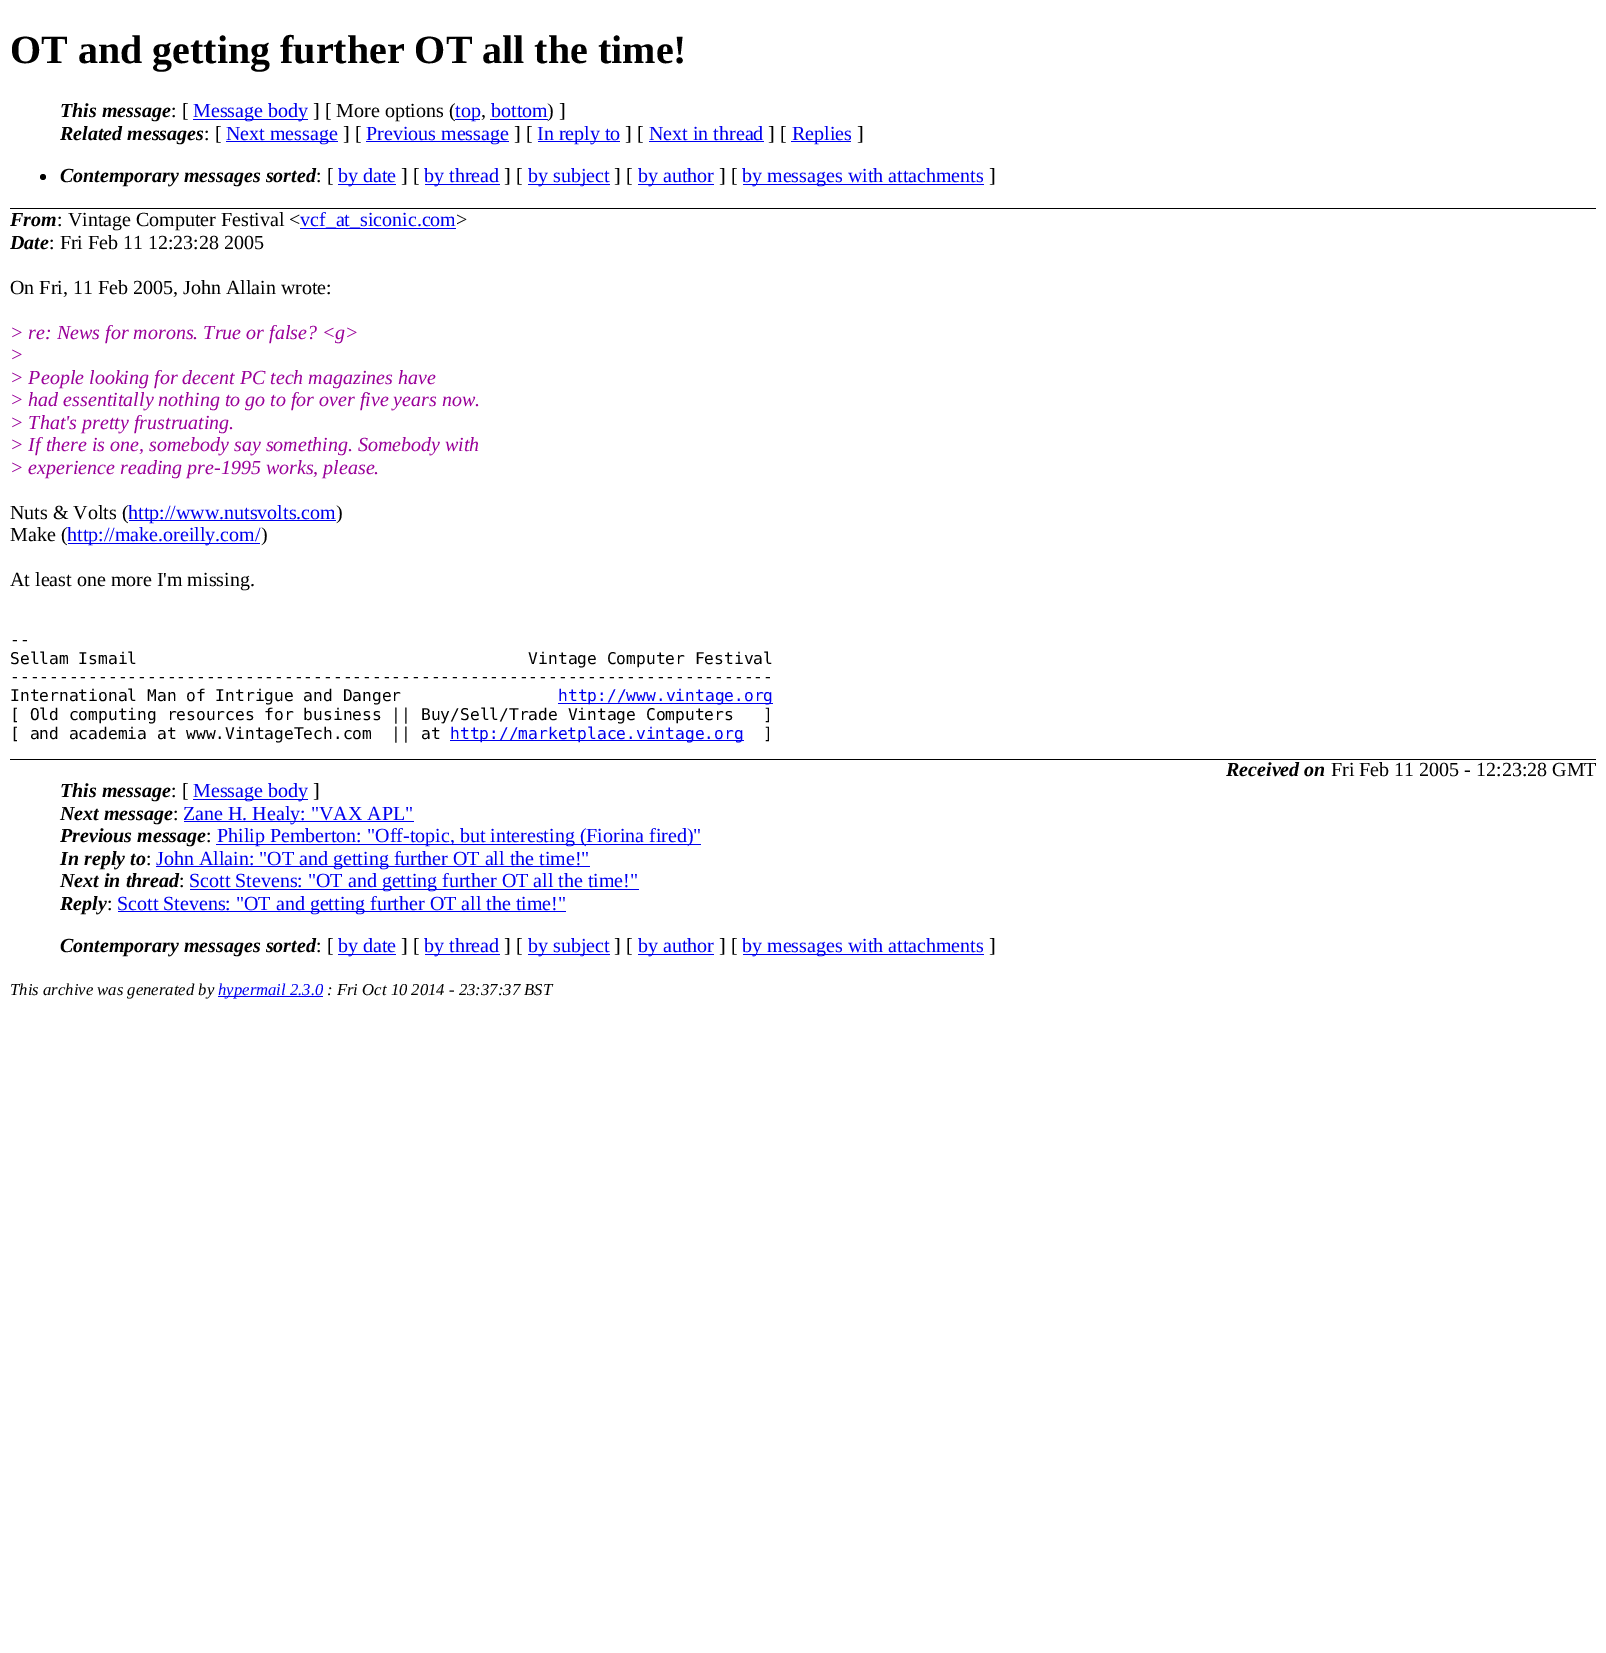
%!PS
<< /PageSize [1606 1653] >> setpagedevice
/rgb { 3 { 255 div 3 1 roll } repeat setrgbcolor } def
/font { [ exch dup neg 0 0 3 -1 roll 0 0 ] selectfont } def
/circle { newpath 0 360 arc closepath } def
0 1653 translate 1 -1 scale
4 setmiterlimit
255 255 255 rgb
0 0 1606 1653 rectfill
[
  [10 208 1586 1 0 0 0]
  [193 119 115 1 0 0 238]
  [455 119 25 1 0 0 238]
  [490 119 58 1 0 0 238]
  [226 141 112 1 0 0 238]
  [366 141 143 1 0 0 238]
  [538 141 82 1 0 0 238]
  [649 141 115 1 0 0 238]
  [791 141 60 1 0 0 238]
] { aload pop rgb rectfill } forall
0 0 0 rgb
43 177 3 circle fill
[
  [338 184 58 1 0 0 238]
  [425 184 75 1 0 0 238]
  [528 184 82 1 0 0 238]
  [638 184 76 1 0 0 238]
  [743 184 241 1 0 0 238]
  [300 228 156 1 0 0 238]
  [129 520 207 1 0 0 238]
  [68 543 192 1 0 0 238]
  [558 703 215 1 0 0 238]
  [450 740 294 1 0 0 238]
  [10 759 1586 1 0 0 0]
  [193 799 115 1 0 0 238]
  [184 821 230 1 0 0 238]
  [216 844 485 1 0 0 238]
  [156 866 434 1 0 0 238]
  [190 889 449 1 0 0 238]
  [118 911 448 1 0 0 238]
  [338 954 58 1 0 0 238]
  [425 954 75 1 0 0 238]
  [528 954 82 1 0 0 238]
  [638 954 76 1 0 0 238]
  [743 954 241 1 0 0 238]
  [218 996 105 1 0 0 238]
] { aload pop rgb rectfill } forall
/LiberationSerif-Bold 40 font
0 0 0 rgb
10 63 moveto (OT and getting further OT all the time!) show
/LiberationSerif-BoldItalic 20 font
60 117 moveto (This message) show
/LiberationSerif-Regular 20 font
171 117 moveto (: [) show
0 0 238 rgb
193 117 moveto (Message body) show
0 0 0 rgb
313 117 moveto (] [ More options \() show
0 0 238 rgb
455 117 moveto (top) show
0 0 0 rgb
481 117 moveto (,) show
0 0 238 rgb
491 117 moveto (bottom) show
0 0 0 rgb
547 117 moveto (\) ]) show
/LiberationSerif-BoldItalic 20 font
60 140 moveto (Related messages) show
/LiberationSerif-Regular 20 font
204 140 moveto (: [) show
0 0 238 rgb
226 140 moveto (Next message) show
0 0 0 rgb
343 140 moveto (] [) show
0 0 238 rgb
366 140 moveto (Previous message) show
0 0 0 rgb
514 140 moveto (] [) show
0 0 238 rgb
537 140 moveto (In reply to) show
0 0 0 rgb
625 140 moveto (] [) show
0 0 238 rgb
649 140 moveto (Next in thread) show
0 0 0 rgb
768 140 moveto (] [) show
0 0 238 rgb
792 140 moveto (Replies) show
0 0 0 rgb
857 140 moveto (]) show
/LiberationSerif-BoldItalic 20 font
60 182 moveto (Contemporary messages sorted) show
/LiberationSerif-Regular 20 font
316 182 moveto (: [) show
0 0 238 rgb
338 182 moveto (by date) show
0 0 0 rgb
401 182 moveto (] [) show
0 0 238 rgb
424 182 moveto (by thread) show
0 0 0 rgb
504 182 moveto (] [) show
0 0 238 rgb
528 182 moveto (by subject) show
0 0 0 rgb
614 182 moveto (] [) show
0 0 238 rgb
638 182 moveto (by author) show
0 0 0 rgb
719 182 moveto (] [) show
0 0 238 rgb
742 182 moveto (by messages with attachments) show
0 0 0 rgb
989 182 moveto (]) show
/LiberationSerif-BoldItalic 20 font
10 226 moveto (From) show
/LiberationSerif-Regular 20 font
57 226 moveto (: Vintage Computer Festival <) show
0 0 238 rgb
300 226 moveto (vcf_at_siconic.com) show
0 0 0 rgb
456 226 moveto (>) show
/LiberationSerif-BoldItalic 20 font
10 249 moveto (Date) show
/LiberationSerif-Regular 20 font
49 249 moveto (: Fri Feb 11 12:23:28 2005) show
10 294 moveto (On Fri, 11 Feb 2005, John Allain wrote:) show
/LiberationSerif-Italic 20 font
153 0 153 rgb
[
  [(> re: News for morons. True or false? <g>) 10 339]
  [(>) 10 361]
  [(> People looking for decent PC tech magazines have) 10 384]
  [(> had essentitally nothing to go to for over five years now.) 10 406]
  [(> That's pretty frustruating.) 10 429]
  [(> If there is one, somebody say something. Somebody with) 10 451]
  [(> experience reading pre-1995 works, please.) 10 474]
] { aload pop moveto show } forall
/LiberationSerif-Regular 20 font
0 0 0 rgb
10 519 moveto (Nuts & Volts \() show
0 0 238 rgb
128 519 moveto (http://www.nutsvolts.com) show
0 0 0 rgb
336 519 moveto (\)) show
10 541 moveto (Make \() show
0 0 238 rgb
67 541 moveto (http://make.oreilly.com/) show
0 0 0 rgb
261 541 moveto (\)) show
10 586 moveto (At least one more I'm missing.) show
/DejaVuSansMono-Regular 16.25 font
[
  [(--) 10 645]
  [(Sellam Ismail                                        Vintage Computer Festival) 10 664]
  [(------------------------------------------------------------------------------) 10 682]
  [(International Man of Intrigue and Danger) 10 701]
] { aload pop moveto show } forall
0 0 238 rgb
558 701 moveto (http://www.vintage.org) show
0 0 0 rgb
10 720 moveto ([ Old computing resources for business || Buy/Sell/Trade Vintage Computers   ]) show
10 739 moveto ([ and academia at www.VintageTech.com  || at) show
0 0 238 rgb
450 739 moveto (http://marketplace.vintage.org) show
0 0 0 rgb
763 739 moveto (]) show
/LiberationSerif-BoldItalic 20 font
1226 776 moveto (Received on) show
/LiberationSerif-Regular 20 font
1331 776 moveto (Fri Feb 11 2005 - 12:23:28 GMT) show
/LiberationSerif-BoldItalic 20 font
60 797 moveto (This message) show
/LiberationSerif-Regular 20 font
171 797 moveto (: [) show
0 0 238 rgb
193 797 moveto (Message body) show
0 0 0 rgb
313 797 moveto (]) show
/LiberationSerif-BoldItalic 20 font
60 820 moveto (Next message) show
/LiberationSerif-Regular 20 font
173 820 moveto (:) show
0 0 238 rgb
183 820 moveto (Zane H. Healy: "VAX APL") show
/LiberationSerif-BoldItalic 20 font
0 0 0 rgb
60 842 moveto (Previous message) show
/LiberationSerif-Regular 20 font
206 842 moveto (:) show
0 0 238 rgb
217 842 moveto (Philip Pemberton: "Off-topic, but interesting \(Fiorina fired\)") show
/LiberationSerif-BoldItalic 20 font
0 0 0 rgb
60 865 moveto (In reply to) show
/LiberationSerif-Regular 20 font
146 865 moveto (:) show
0 0 238 rgb
156 865 moveto (John Allain: "OT and getting further OT all the time!") show
/LiberationSerif-BoldItalic 20 font
0 0 0 rgb
60 887 moveto (Next in thread) show
/LiberationSerif-Regular 20 font
179 887 moveto (:) show
0 0 238 rgb
189 887 moveto (Scott Stevens: "OT and getting further OT all the time!") show
/LiberationSerif-BoldItalic 20 font
0 0 0 rgb
60 910 moveto (Reply) show
/LiberationSerif-Regular 20 font
107 910 moveto (:) show
0 0 238 rgb
117 910 moveto (Scott Stevens: "OT and getting further OT all the time!") show
/LiberationSerif-BoldItalic 20 font
0 0 0 rgb
60 952 moveto (Contemporary messages sorted) show
/LiberationSerif-Regular 20 font
316 952 moveto (: [) show
0 0 238 rgb
338 952 moveto (by date) show
0 0 0 rgb
401 952 moveto (] [) show
0 0 238 rgb
424 952 moveto (by thread) show
0 0 0 rgb
504 952 moveto (] [) show
0 0 238 rgb
528 952 moveto (by subject) show
0 0 0 rgb
614 952 moveto (] [) show
0 0 238 rgb
638 952 moveto (by author) show
0 0 0 rgb
719 952 moveto (] [) show
0 0 238 rgb
742 952 moveto (by messages with attachments) show
0 0 0 rgb
989 952 moveto (]) show
/LiberationSerif-Italic 16.7 font
10 995 moveto (This archive was generated by) show
0 0 238 rgb
218 995 moveto (hypermail 2.3.0) show
0 0 0 rgb
327 995 moveto (: Fri Oct 10 2014 - 23:37:37 BST) show
showpage
